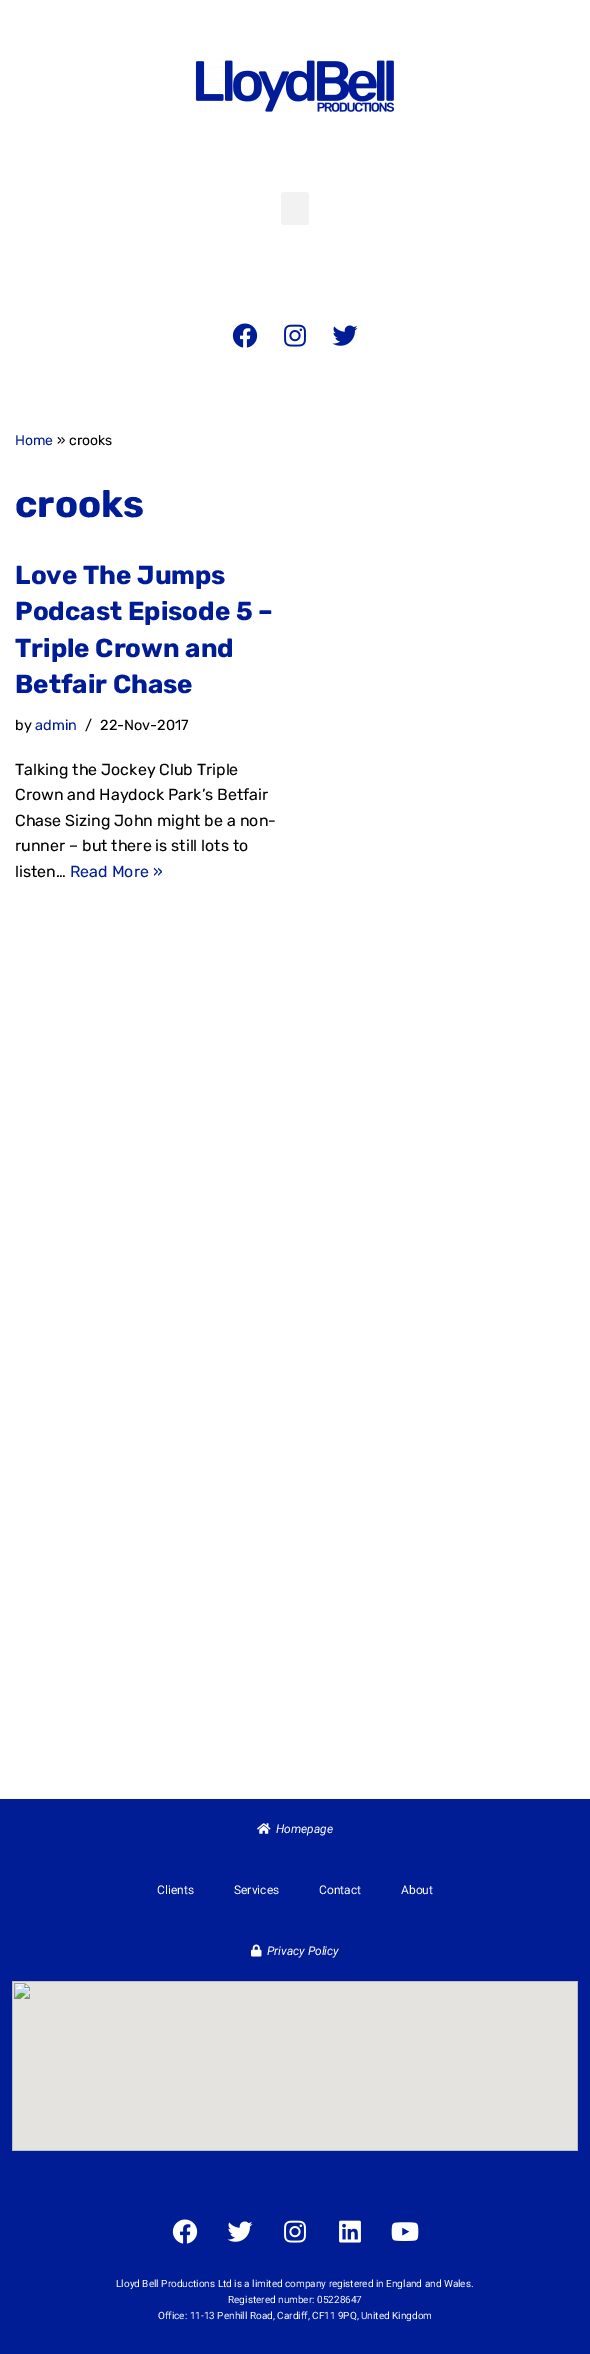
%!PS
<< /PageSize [590 2354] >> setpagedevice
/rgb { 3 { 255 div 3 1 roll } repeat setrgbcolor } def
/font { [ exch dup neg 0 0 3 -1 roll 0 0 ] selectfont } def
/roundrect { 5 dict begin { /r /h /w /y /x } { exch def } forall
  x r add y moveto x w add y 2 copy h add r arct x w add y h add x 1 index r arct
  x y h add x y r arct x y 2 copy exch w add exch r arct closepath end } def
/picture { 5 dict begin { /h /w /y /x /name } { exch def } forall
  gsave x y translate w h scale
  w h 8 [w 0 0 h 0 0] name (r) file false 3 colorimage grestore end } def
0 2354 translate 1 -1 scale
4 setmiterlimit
255 255 255 rgb
0 0 590 2354 rectfill
(img/1.rgb) 195 60 200 52 picture
242 242 242 rgb
281 192 28 33 3 roundrect fill
(img/2.rgb) 232 323 26 25 picture
(img/3.rgb) 284 324 22 23 picture
(img/4.rgb) 332 325 26 21 picture
0 29 149 rgb
0 1799 590 555 rectfill
(img/5.rgb) 257 1823 14 11 picture
(img/6.rgb) 251 1944 11 13 picture
(img/7.rgb) 12 1981 566 170 picture
(img/8.rgb) 172 2219 26 25 picture
(img/9.rgb) 227 2221 26 21 picture
(img/10.rgb) 284 2220 22 23 picture
(img/11.rgb) 339 2220 22 23 picture
(img/12.rgb) 391 2222 28 19 picture
/Rubik-Regular 14 font
15 445 moveto (Home) show
0 0 0 rgb
57 445 moveto (» crooks) show
/Rubik-Bold 38 font
0 29 149 rgb
15 517 moveto (crooks) show
/Rubik-Bold 26 font
[
  [(Love The Jumps) 15 584]
  [(Podcast Episode 5 –) 15 620]
  [(Triple Crown and) 15 657]
  [(Betfair Chase) 15 693]
] { aload pop moveto show } forall
/Rubik-Regular 14.5 font
0 0 0 rgb
15 730 moveto (by) show
0 29 149 rgb
35 730 moveto (admin) show
0 0 0 rgb
85 730 moveto (/) show
100 730 moveto (22-Nov-2017) show
/Rubik-Regular 16 font
[
  [(Talking the Jockey Club Triple) 15 775]
  [(Crown and Haydock Park’s Betfair) 15 800]
  [(Chase Sizing John might be a non-) 15 826]
  [(runner – but there is still lots to) 15 851]
  [(listen…) 15 877]
] { aload pop moveto show } forall
0 29 149 rgb
70 877 moveto (Read More ») show
/Roboto-Italic 12 font
255 255 255 rgb
276 1833 moveto (Homepage) show
/Roboto-Regular 12 font
[
  [(Clients) 157 1894]
  [(Services) 234 1894]
  [(Contact) 319 1894]
  [(About) 401 1894]
] { aload pop moveto show } forall
/Roboto-Italic 12 font
267 1955 moveto (Privacy Policy) show
/Roboto-Regular 10 font
[
  [(Lloyd Bell Productions Ltd is a limited company registered in England and Wales.) 116 2287]
  [(Registered number: 05228647) 228 2303]
  [(Office: 11-13 Penhill Road, Cardiff, CF11 9PQ, United Kingdom) 158 2319]
] { aload pop moveto show } forall
showpage
